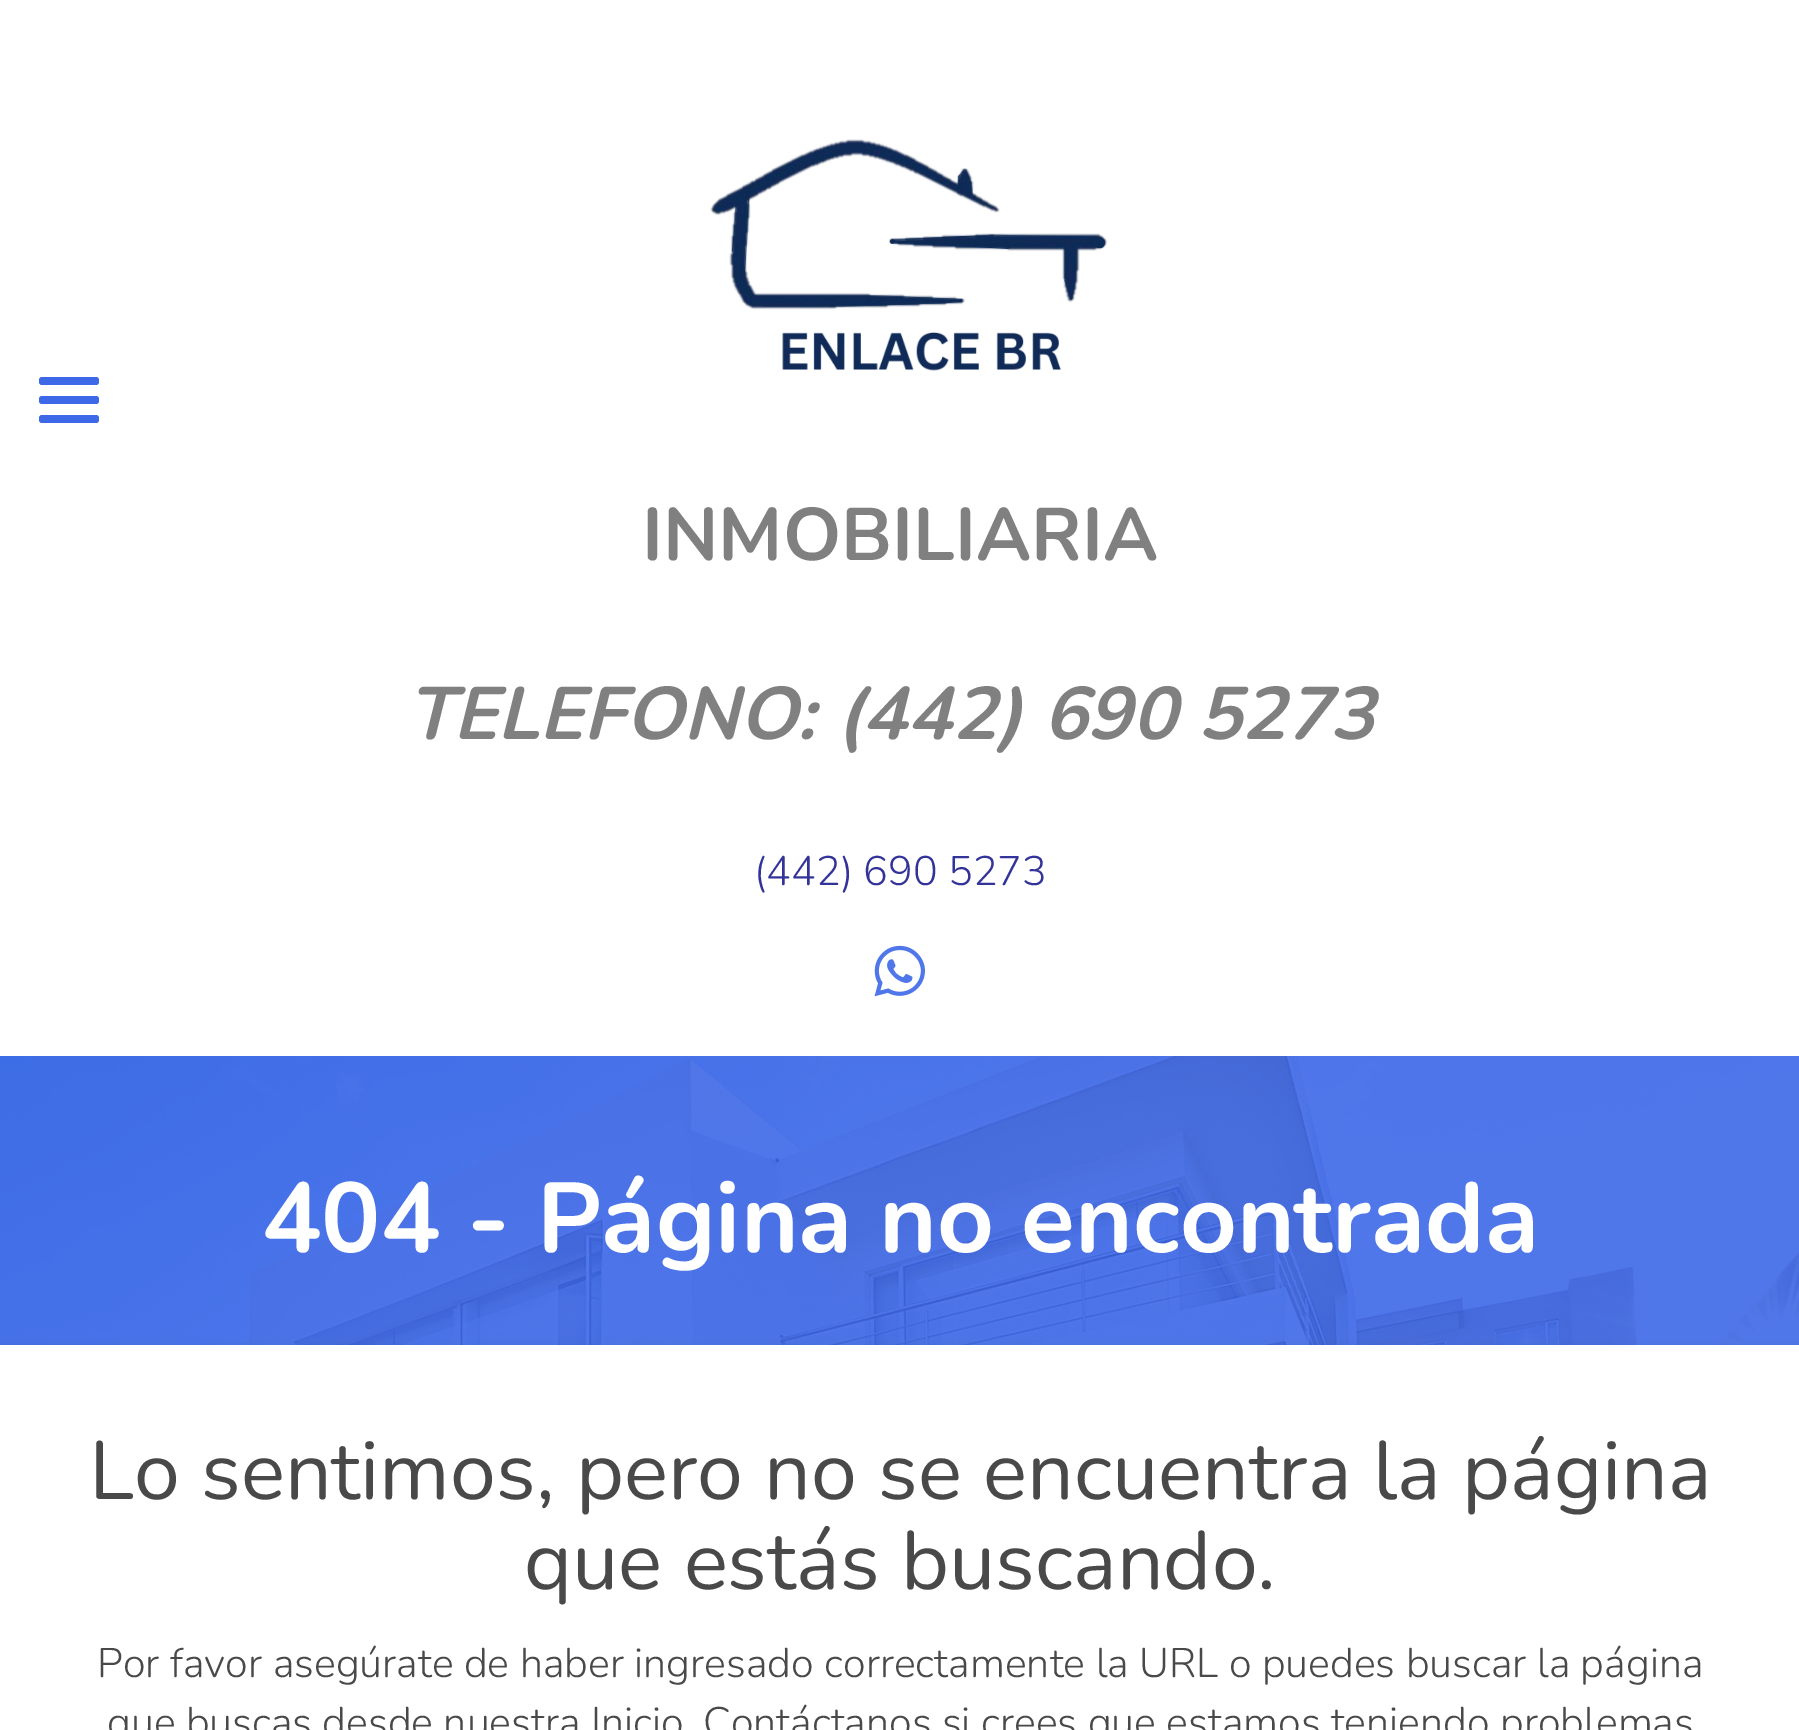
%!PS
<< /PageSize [1799 1730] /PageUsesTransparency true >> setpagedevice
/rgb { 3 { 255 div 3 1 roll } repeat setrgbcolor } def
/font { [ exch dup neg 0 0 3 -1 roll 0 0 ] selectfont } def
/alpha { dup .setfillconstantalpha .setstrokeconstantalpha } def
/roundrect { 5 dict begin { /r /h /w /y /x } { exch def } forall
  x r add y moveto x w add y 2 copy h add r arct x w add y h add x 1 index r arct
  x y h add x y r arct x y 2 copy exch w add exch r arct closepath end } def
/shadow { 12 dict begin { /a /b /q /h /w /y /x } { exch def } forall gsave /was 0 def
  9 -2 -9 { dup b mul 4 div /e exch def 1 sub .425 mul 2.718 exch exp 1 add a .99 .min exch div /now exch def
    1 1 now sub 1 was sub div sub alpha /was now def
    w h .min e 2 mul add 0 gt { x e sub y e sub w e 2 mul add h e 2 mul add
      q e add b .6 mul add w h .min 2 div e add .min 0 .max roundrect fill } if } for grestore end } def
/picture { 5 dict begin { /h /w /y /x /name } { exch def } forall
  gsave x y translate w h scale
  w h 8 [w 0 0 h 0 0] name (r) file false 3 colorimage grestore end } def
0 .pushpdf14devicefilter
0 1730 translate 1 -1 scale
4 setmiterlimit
255 255 255 rgb
0 0 1799 1730 rectfill
61 104 232 rgb
39 377 60 8 3 roundrect fill
39 396 60 8 3 roundrect fill
39 415 60 8 3 roundrect fill
(img/1.rgb) 710 139 397 232 picture
(img/2.rgb) 874 945 51 52 picture
(img/3.rgb) 0 1056 1799 289 picture
0 0 0 rgb
3 1348 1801 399 0 5.5 0.1 shadow
255 255 255 rgb
0 1345 1799 385 rectfill
/Nunito-Bold 74.25 font
128 128 128 rgb
642 560 moveto (INMOBILIARIA) show
/Nunito-BoldItalic 74.25 font
407 739 moveto (TELEFONO: \(442\) 690 5273) show
/Nunito-Light 41.25 font
51 51 153 rgb
754 885 moveto (\(442\) 690 5273) show
/Nunito-Bold 99 font
255 255 255 rgb
262 1252 moveto (404 - Página no encontrada) show
/Nunito-Regular 82.5 font
73 73 73 rgb
89 1499 moveto (Lo sentimos, pero no se encuentra la página) show
524 1589 moveto (que estás buscando.) show
/Nunito-Light 41.25 font
[
  [(Por favor asegúrate de haber ingresado correctamente la URL o puedes buscar la página) 97 1677]
  [(que buscas desde nuestra Inicio) 107 1736]
  [(Contáctanos si crees que estamos teniendo problemas) 703 1736]
] { aload pop moveto show } forall
.poppdf14devicefilter showpage
